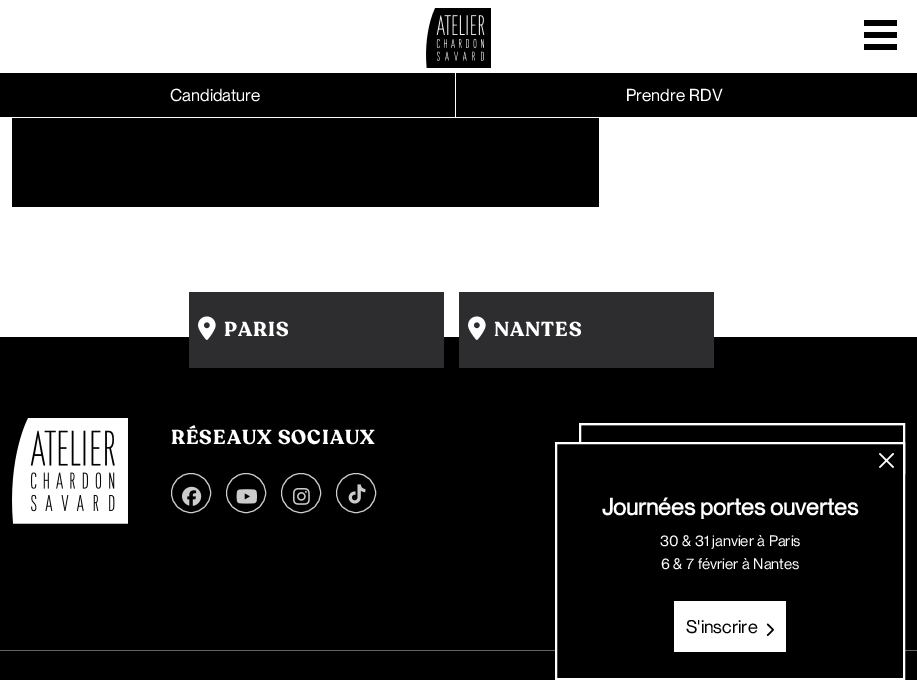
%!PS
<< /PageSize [917 680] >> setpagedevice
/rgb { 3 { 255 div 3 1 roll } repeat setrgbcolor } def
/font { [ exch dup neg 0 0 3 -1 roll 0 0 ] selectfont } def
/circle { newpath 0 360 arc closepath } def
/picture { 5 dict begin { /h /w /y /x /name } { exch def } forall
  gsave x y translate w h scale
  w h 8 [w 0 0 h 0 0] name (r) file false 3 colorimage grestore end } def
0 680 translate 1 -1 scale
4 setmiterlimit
255 255 255 rgb
0 0 917 680 rectfill
(img/1.rgb) 426 8 65 60 picture
[
  [864 20 33 6 0 0 0]
  [864 32 33 6 0 0 0]
  [864 44 33 6 0 0 0]
  [0 73 455 44 0 0 0]
  [456 73 461 44 0 0 0]
  [0 337 917 343 0 0 0]
  [189 292 255 76 45 45 48]
] { aload pop rgb rectfill } forall
(img/2.rgb) 198 316 18 24 picture
459 292 255 76 rectfill
(img/2.rgb) 468 316 18 24 picture
(img/3.rgb) 12 418 116 106 picture
204 204 204 rgb
191 493 19.5 circle stroke
(img/4.rgb) 182 486 20 20 picture
246 493 19.5 circle stroke
(img/5.rgb) 236 489 22 15 picture
301 493 19.5 circle stroke
(img/6.rgb) 293 488 17 17 picture
356 493 19.5 circle stroke
(img/7.rgb) 348 484 18 20 picture
38 38 38 rgb
581 425 322 1 rectfill
255 255 255 rgb
2 setlinewidth
580 424 324 49 rectstroke
[
  [0 650 917 1 98 98 98]
  [12 118 587 89 0 0 0]
  [557 444 346 207 0 0 0]
] { aload pop rgb rectfill } forall
255 255 255 rgb
556 443 348 236 rectstroke
(img/8.rgb) 879 453 15 15 picture
674 601 112 51 rectfill
(img/9.rgb) 766 623 8 14 picture
/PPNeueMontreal-Regular 17 font
170 101 moveto (Candidature) show
626 101 moveto (Prendre RDV) show
/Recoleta-Bold 20 font
224 336 moveto 1 0 (PARIS) ashow
494 336 moveto 1 0 (NANTES) ashow
171 444 moveto 1 0 (RÉSEAUX SOCIAUX) ashow
/PPNeueMontreal-Bold 23.1 font
602 515 moveto (Journées portes ouvertes) show
/PPNeueMontreal-Regular 15 font
660 546 moveto (30 & 31 janvier à Paris) show
661 569 moveto (6 & 7 février à Nantes) show
/PPNeueMontreal-Regular 18 font
0 0 0 rgb
686 633 moveto (S'inscrire) show
showpage
